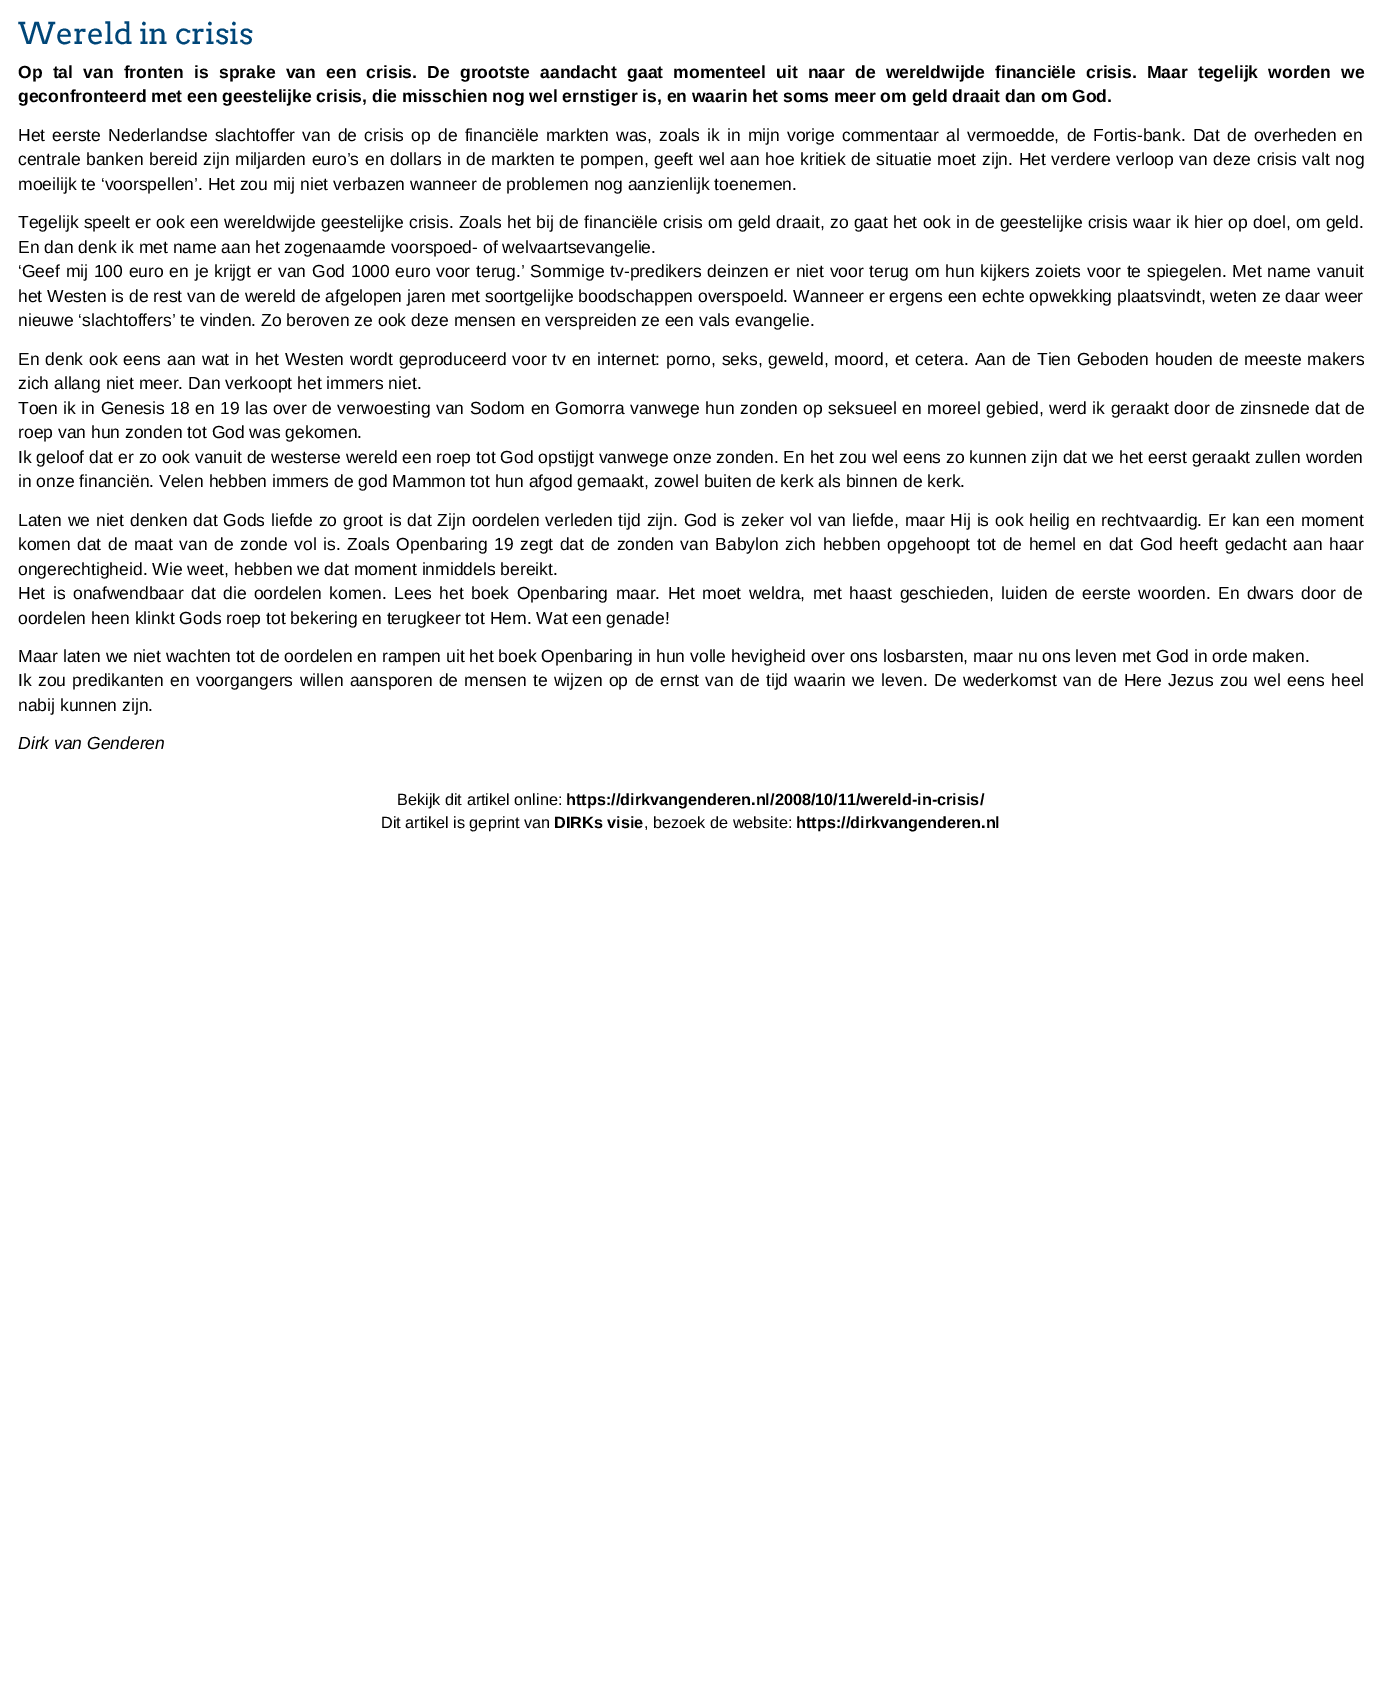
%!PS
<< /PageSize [1381 1701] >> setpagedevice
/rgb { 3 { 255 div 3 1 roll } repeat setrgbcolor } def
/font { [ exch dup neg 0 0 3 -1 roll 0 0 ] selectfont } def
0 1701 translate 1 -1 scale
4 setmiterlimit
255 255 255 rgb
0 0 1381 1701 rectfill
/Arvo-Regular 30 font
0 70 120 rgb
18 44 moveto (Wereld in crisis) show
/LiberationSans-Bold 17.5 font
0 0 0 rgb
18 78 moveto 5.4 0 32 (Op tal van fronten is sprake van een crisis. De grootste aandacht gaat momenteel uit naar de wereldwijde financiële crisis. Maar tegelijk worden we) widthshow
18 102 moveto (geconfronteerd met een geestelijke crisis, die misschien nog wel ernstiger is, en waarin het soms meer om geld draait dan om God.) show
/LiberationSans-Regular 17.5 font
18 141 moveto 2.3 0 32 (Het eerste Nederlandse slachtoffer van de crisis op de financiële markten was, zoals ik in mijn vorige commentaar al vermoedde, de Fortis-bank. Dat de overheden en) widthshow
18 165 moveto 0.75 0 32 (centrale banken bereid zijn miljarden euro’s en dollars in de markten te pompen, geeft wel aan hoe kritiek de situatie moet zijn. Het verdere verloop van deze crisis valt nog) widthshow
18 190 moveto (moeilijk te ‘voorspellen’. Het zou mij niet verbazen wanneer de problemen nog aanzienlijk toenemen.) show
18 228 moveto 0.4 0 32 (Tegelijk speelt er ook een wereldwijde geestelijke crisis. Zoals het bij de financiële crisis om geld draait, zo gaat het ook in de geestelijke crisis waar ik hier op doel, om geld.) widthshow
18 253 moveto (En dan denk ik met name aan het zogenaamde voorspoed- of welvaartsevangelie.) show
18 277 moveto 0.9 0 32 (‘Geef mij 100 euro en je krijgt er van God 1000 euro voor terug.’ Sommige tv-predikers deinzen er niet voor terug om hun kijkers zoiets voor te spiegelen. Met name vanuit) widthshow
18 302 moveto (het Westen is de rest van de wereld de afgelopen jaren met soortgelijke boodschappen overspoeld. Wanneer er ergens een echte opwekking plaatsvindt, weten ze daar weer) show
18 326 moveto (nieuwe ‘slachtoffers’ te vinden. Zo beroven ze ook deze mensen en verspreiden ze een vals evangelie.) show
18 365 moveto 1 0 32 (En denk ook eens aan wat in het Westen wordt geproduceerd voor tv en internet: porno, seks, geweld, moord, et cetera. Aan de Tien Geboden houden de meeste makers) widthshow
18 389 moveto (zich allang niet meer. Dan verkoopt het immers niet.) show
18 414 moveto 0.6 0 32 (Toen ik in Genesis 18 en 19 las over de verwoesting van Sodom en Gomorra vanwege hun zonden op seksueel en moreel gebied, werd ik geraakt door de zinsnede dat de) widthshow
[
  [(roep van hun zonden tot God was gekomen.) 18 438]
  [(Ik geloof dat er zo ook vanuit de westerse wereld een roep tot God opstijgt vanwege onze zonden. En het zou wel eens zo kunnen zijn dat we het eerst geraakt zullen worden) 18 463]
  [(in onze financiën. Velen hebben immers de god Mammon tot hun afgod gemaakt, zowel buiten de kerk als binnen de kerk.) 18 487]
] { aload pop moveto show } forall
18 526 moveto 1 0 32 (Laten we niet denken dat Gods liefde zo groot is dat Zijn oordelen verleden tijd zijn. God is zeker vol van liefde, maar Hij is ook heilig en rechtvaardig. Er kan een moment) widthshow
18 550 moveto 1.65 0 32 (komen dat de maat van de zonde vol is. Zoals Openbaring 19 zegt dat de zonden van Babylon zich hebben opgehoopt tot de hemel en dat God heeft gedacht aan haar) widthshow
18 575 moveto (ongerechtigheid. Wie weet, hebben we dat moment inmiddels bereikt.) show
18 599 moveto 2.6 0 32 (Het is onafwendbaar dat die oordelen komen. Lees het boek Openbaring maar. Het moet weldra, met haast geschieden, luiden de eerste woorden. En dwars door de) widthshow
18 624 moveto (oordelen heen klinkt Gods roep tot bekering en terugkeer tot Hem. Wat een genade!) show
18 662 moveto (Maar laten we niet wachten tot de oordelen en rampen uit het boek Openbaring in hun volle hevigheid over ons losbarsten, maar nu ons leven met God in orde maken.) show
18 686 moveto 1.45 0 32 (Ik zou predikanten en voorgangers willen aansporen de mensen te wijzen op de ernst van de tijd waarin we leven. De wederkomst van de Here Jezus zou wel eens heel) widthshow
18 711 moveto (nabij kunnen zijn.) show
/LiberationSans-Italic 17.5 font
18 749 moveto (Dirk van Genderen) show
/LiberationSans-Regular 16.25 font
397 805 moveto (Bekijk dit artikel online:) show
/LiberationSans-Bold 16.25 font
566 805 moveto (https://dirkvangenderen.nl/2008/10/11/wereld-in-crisis/) show
/LiberationSans-Regular 16.25 font
381 828 moveto (Dit artikel is geprint van) show
/LiberationSans-Bold 16.25 font
554 828 moveto (DIRKs visie) show
/LiberationSans-Regular 16.25 font
644 828 moveto (, bezoek de website:) show
/LiberationSans-Bold 16.25 font
796 828 moveto (https://dirkvangenderen.nl) show
showpage
